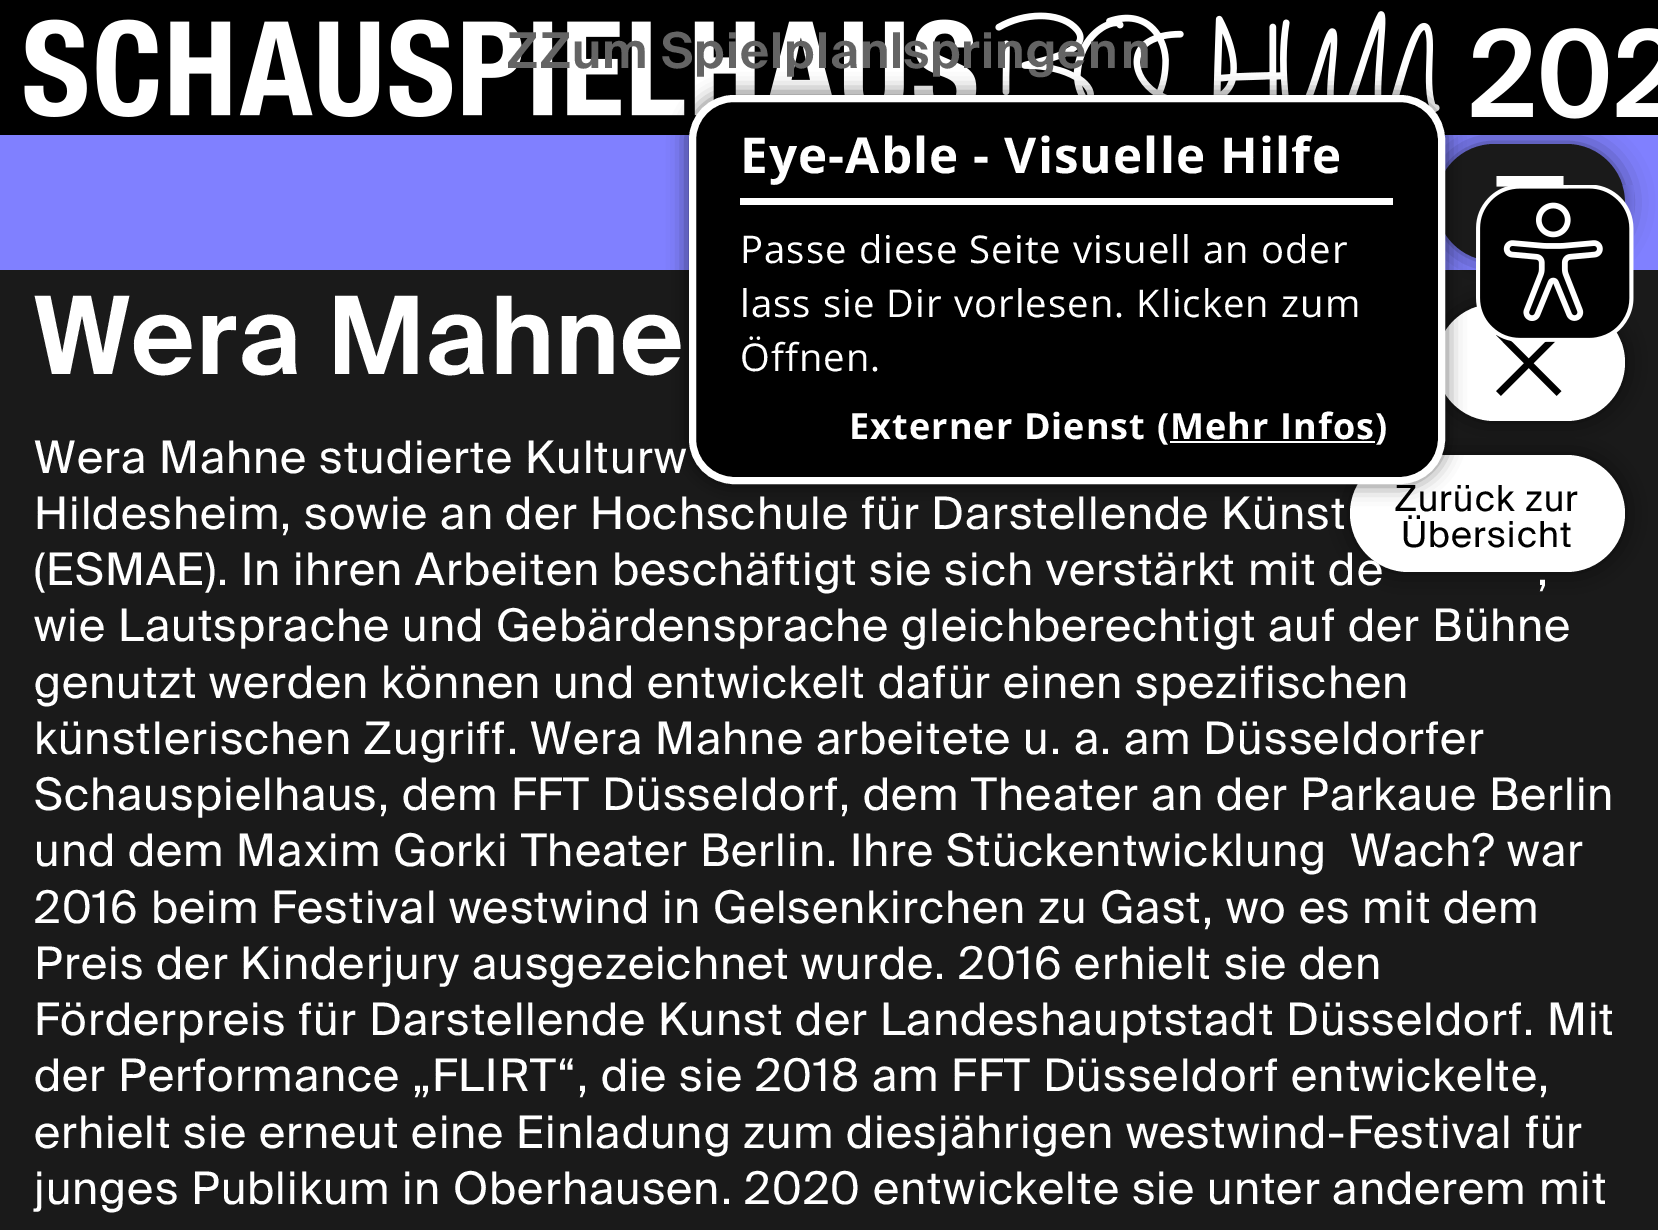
%!PS
<< /PageSize [1658 1230] /PageUsesTransparency true >> setpagedevice
/rgb { 3 { 255 div 3 1 roll } repeat setrgbcolor } def
/font { [ exch dup neg 0 0 3 -1 roll 0 0 ] selectfont } def
/alpha { dup .setfillconstantalpha .setstrokeconstantalpha } def
/roundrect { 5 dict begin { /r /h /w /y /x } { exch def } forall
  x r add y moveto x w add y 2 copy h add r arct x w add y h add x 1 index r arct
  x y h add x y r arct x y 2 copy exch w add exch r arct closepath end } def
/shadow { 12 dict begin { /a /b /q /h /w /y /x } { exch def } forall gsave /was 0 def
  9 -2 -9 { dup b mul 4 div /e exch def 1 sub .425 mul 2.718 exch exp 1 add a .99 .min exch div /now exch def
    1 1 now sub 1 was sub div sub alpha /was now def
    w h .min e 2 mul add 0 gt { x e sub y e sub w e 2 mul add h e 2 mul add
      q e add b .6 mul add w h .min 2 div e add .min 0 .max roundrect fill } if } for grestore end } def
/picture { 5 dict begin { /h /w /y /x /name } { exch def } forall
  gsave x y translate w h scale
  w h 8 [w 0 0 h 0 0] name (r) file false 3 colorimage grestore end } def
0 .pushpdf14devicefilter
0 1230 translate 1 -1 scale
4 setmiterlimit
26 26 26 rgb
0 0 1658 1230 rectfill
0 0 0 rgb
0 0 1658 135 rectfill
(img/1.rgb) 24 11 1634 108 picture
128 128 255 rgb
0 135 1658 135 rectfill
0 0 0 rgb
1436 144 189 117 58.5 13.5 0.5 shadow
26 26 26 rgb
1436 144 189 117 58.5 roundrect fill
0 0 0 rgb
1436 304 189 117 58.5 13.5 0.5 shadow
255 255 255 rgb
1436 304 189 117 58.5 roundrect fill
0 0 0 rgb
1350 455 275 117 58.5 13.5 0.5 shadow
255 255 255 rgb
1350 455 275 117 58.5 roundrect fill
0 0 0 rgb
686 92 761 394 47 9 0.5 shadow
692.5 98.5 749 382 41.5 roundrect gsave fill grestore
255 255 255 rgb
7 setlinewidth
stroke
740 198 653 7 rectfill
1170 441 205 2 rectfill
gsave
1496 176 68 56 rectclip
11.2 setlinewidth
1563.5 181 moveto 1496.5 181 lineto stroke
grestore
0 0 0 rgb
6.6 setlinewidth
1498.5 333 moveto 1559 393.5 lineto stroke
1559 333 moveto 1498.5 393.5 lineto stroke
(img/2.rgb) 1476 185 158 157 picture
/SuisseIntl-SemiBold 49.5 font
100 100 100 rgb
540 68 moveto 1.08 0 (Zum Spielplan springen) ashow
507 68 moveto 1.08 0 (Z) ashow
890 68 moveto 1.08 0 (l) ashow
1121 68 moveto 1.08 0 (n) ashow
/OpenSans-Bold 49.5 font
255 255 255 rgb
740 173 moveto 1.08 0 (Eye-Able - Visuelle Hilfe) ashow
/OpenSans-Regular 38.25 font
740 263 moveto 1.08 0 (Passe diese Seite visuell an oder) ashow
740 317 moveto 1.08 0 (lass sie Dir vorlesen. Klicken zum) ashow
740 371 moveto 1.08 0 (Öffnen.) ashow
/OpenSans-Bold 36 font
849 439 moveto 1.08 0 (Externer Dienst \(Mehr Infos\)) ashow
/SuisseIntl-SemiBold 108 font
34 374 moveto 1.08 0 (Wera Mahne) ashow
/SuisseIntl-Regular 45 font
34 473 moveto 1.08 0 (Wera Mahne studierte Kulturw) ashow
34 529 moveto 1.08 0 (Hildesheim, sowie an der Hochschule für Darstellende Künst) ashow
34 585 moveto 1.08 0 (\(ESMAE\). In ihren Arbeiten beschäftigt sie sich verstärkt mit de) ashow
1537 585 moveto 1.08 0 (,) ashow
34 641 moveto 1.08 0 (wie Lautsprache und Gebärdensprache gleichberechtigt auf der Bühne) ashow
34 698 moveto 1.08 0 (genutzt werden können und entwickelt dafür einen spezifischen) ashow
34 754 moveto 1.08 0 (künstlerischen Zugriff. Wera Mahne arbeitete u. a. am Düsseldorfer) ashow
34 810 moveto 1.08 0 (Schauspielhaus, dem FFT Düsseldorf, dem Theater an der Parkaue Berlin) ashow
34 866 moveto 1.08 0 (und dem Maxim Gorki Theater Berlin. Ihre Stückentwicklung  Wach? war) ashow
34 923 moveto 1.08 0 (2016 beim Festival westwind in Gelsenkirchen zu Gast, wo es mit dem) ashow
34 979 moveto 1.08 0 (Preis der Kinderjury ausgezeichnet wurde. 2016 erhielt sie den) ashow
34 1035 moveto 1.08 0 (Förderpreis für Darstellende Kunst der Landeshauptstadt Düsseldorf. Mit) ashow
34 1091 moveto 1.08 0 (der Performance „FLIRT“, die sie 2018 am FFT Düsseldorf entwickelte,) ashow
34 1148 moveto 1.08 0 (erhielt sie erneut eine Einladung zum diesjährigen westwind-Festival für) ashow
34 1204 moveto 1.08 0 (junges Publikum in Oberhausen. 2020 entwickelte sie unter anderem mit) ashow
/SuisseIntl-Regular 36 font
0 0 0 rgb
1394 511 moveto 1.1 0 (Zurück zur) ashow
1401 547 moveto 1.1 0 (Übersicht) ashow
.poppdf14devicefilter showpage
